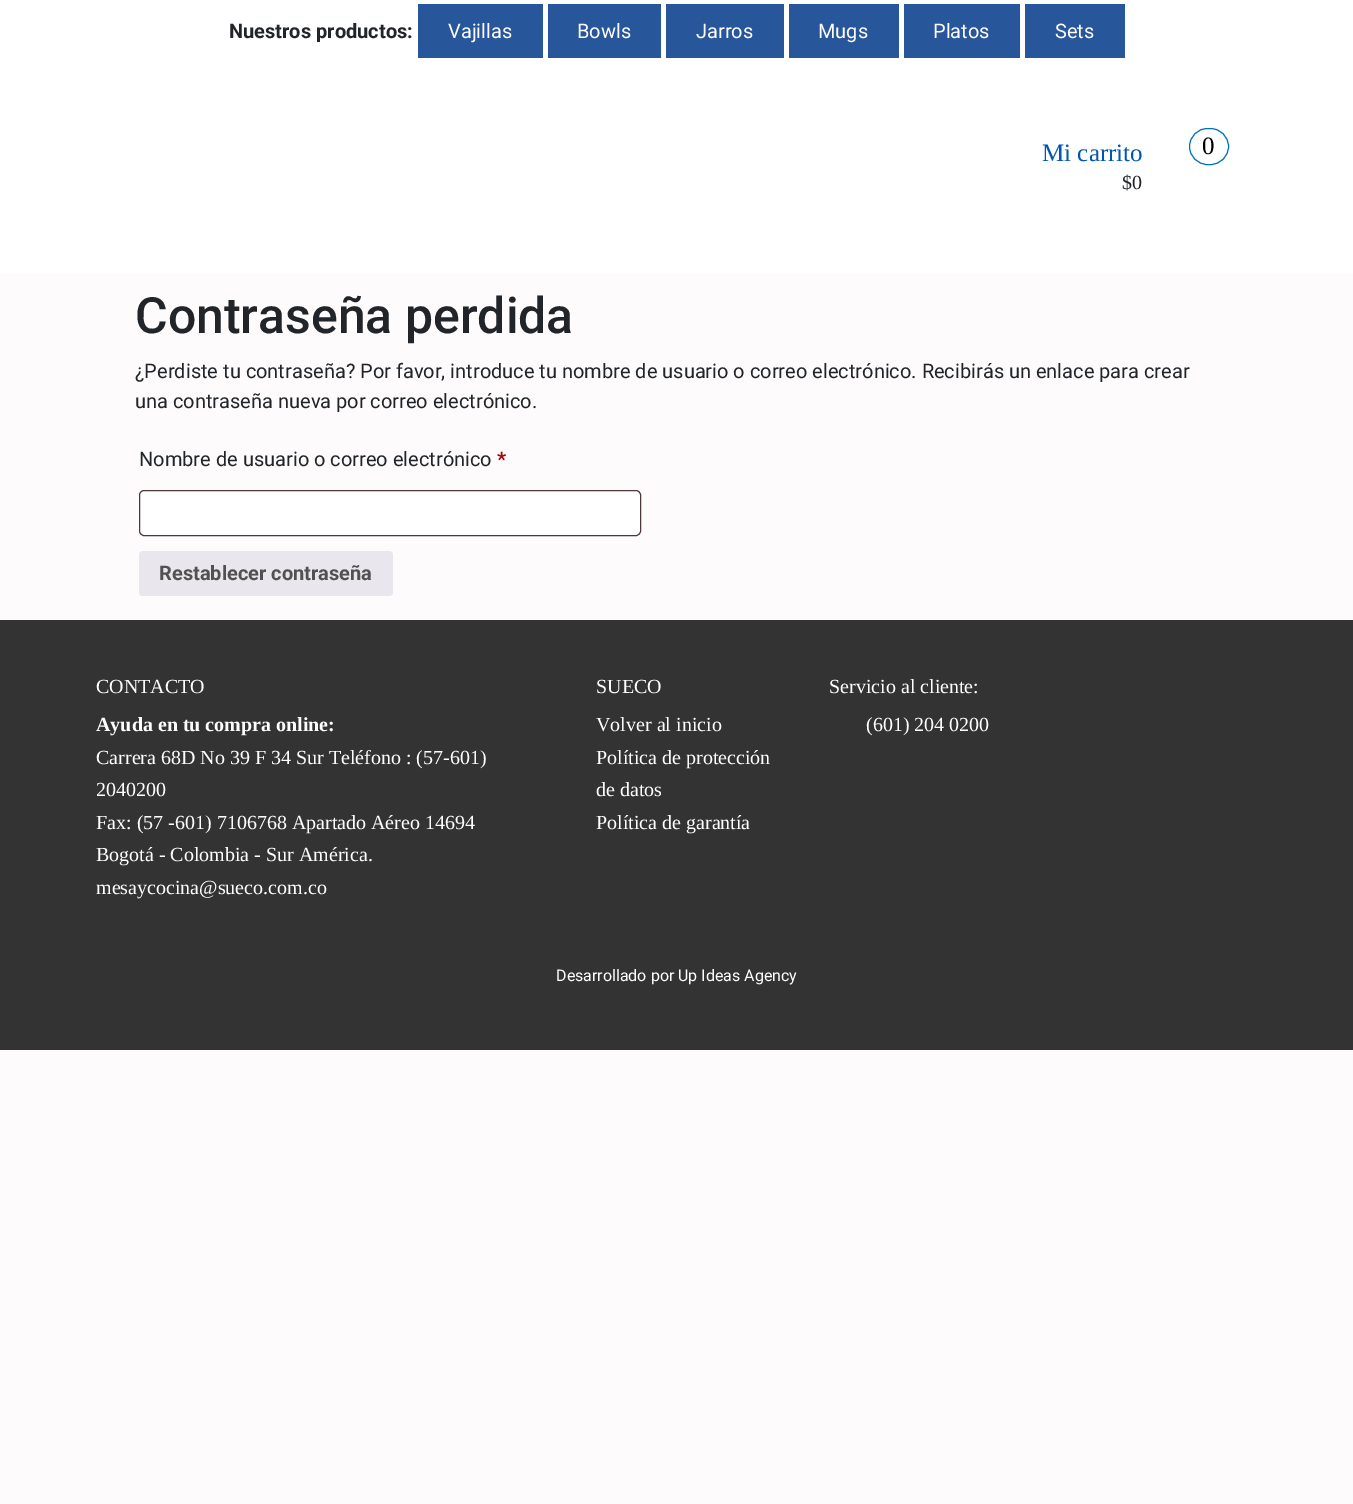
%!PS
<< /PageSize [1353 1504] >> setpagedevice
/rgb { 3 { 255 div 3 1 roll } repeat setrgbcolor } def
/font { [ exch dup neg 0 0 3 -1 roll 0 0 ] selectfont } def
/roundrect { 5 dict begin { /r /h /w /y /x } { exch def } forall
  x r add y moveto x w add y 2 copy h add r arct x w add y h add x 1 index r arct
  x y h add x y r arct x y 2 copy exch w add exch r arct closepath end } def
0 1504 translate 1 -1 scale
4 setmiterlimit
253 251 251 rgb
0 0 1353 1504 rectfill
[
  [0 0 1353 274 255 255 255]
  [418 4 125 54 40 86 155]
  [548 4 113 54 40 86 155]
  [666 4 118 54 40 86 155]
  [789 4 110 54 40 86 155]
  [904 4 116 54 40 86 155]
  [1025 4 100 54 40 86 155]
] { aload pop rgb rectfill } forall
0 113 188 rgb
1189.5 128.5 39 36 18 roundrect stroke
255 255 255 rgb
139.5 490.5 501 45 4.5 roundrect gsave fill grestore
77 57 57 rgb
stroke
233 230 237 rgb
139 551 254 45 4 roundrect fill
51 51 51 rgb
0 620 1353 430 rectfill
/Roboto-Bold 20 font
33 37 41 rgb
229 38 moveto (Nuestros productos:) show
/Roboto-Regular 20 font
255 255 255 rgb
[
  [(Vajillas) 448 38]
  [(Bowls) 577 38]
  [(Jarros) 696 38]
  [(Mugs) 818 38]
  [(Platos) 933 38]
  [(Sets) 1055 38]
] { aload pop moveto show } forall
/LiberationSerif-Regular 25 font
0 86 179 rgb
1042 161 moveto (Mi carrito) show
/LiberationSerif-Regular 20 font
33 37 41 rgb
1122 189 moveto ($0) show
/LiberationSerif-Regular 25 font
0 0 0 rgb
1202 154 moveto (0) show
/Roboto-Medium 50 font
33 37 41 rgb
135 333 moveto (Contraseña perdida) show
/Roboto-Regular 20 font
[
  [(¿Perdiste tu contraseña? Por favor, introduce tu nombre de usuario o correo electrónico. Recibirás un enlace para crear) 135 378]
  [(una contraseña nueva por correo electrónico.) 135 408]
  [(Nombre de usuario o correo electrónico) 139 466]
] { aload pop moveto show } forall
/Roboto-Bold 20 font
170 0 0 rgb
497 466 moveto (*) show
81 81 81 rgb
159 580 moveto (Restablecer contraseña) show
/LiberationSerif-Regular 20 font
255 255 255 rgb
96 693 moveto (CONTACTO) show
/LiberationSerif-Bold 20 font
96 731 moveto (Ayuda en tu compra online:) show
/LiberationSerif-Regular 20 font
[
  [(Carrera 68D No 39 F 34 Sur Teléfono : \(57-601\)) 96 764]
  [(2040200) 96 796]
  [(Fax: \(57 -601\) 7106768 Apartado Aéreo 14694) 96 829]
  [(Bogotá - Colombia - Sur América.) 96 861]
  [(mesaycocina@sueco.com.co) 96 894]
  [(SUECO) 596 693]
  [(Volver al inicio) 596 731]
  [(Política de protección) 596 764]
  [(de datos) 596 796]
  [(Política de garantía) 596 829]
  [(Servicio al cliente:) 829 693]
  [(\(601\) 204 0200) 866 731]
] { aload pop moveto show } forall
/Roboto-Regular 16 font
556 981 moveto (Desarrollado por Up Ideas Agency) show
showpage
